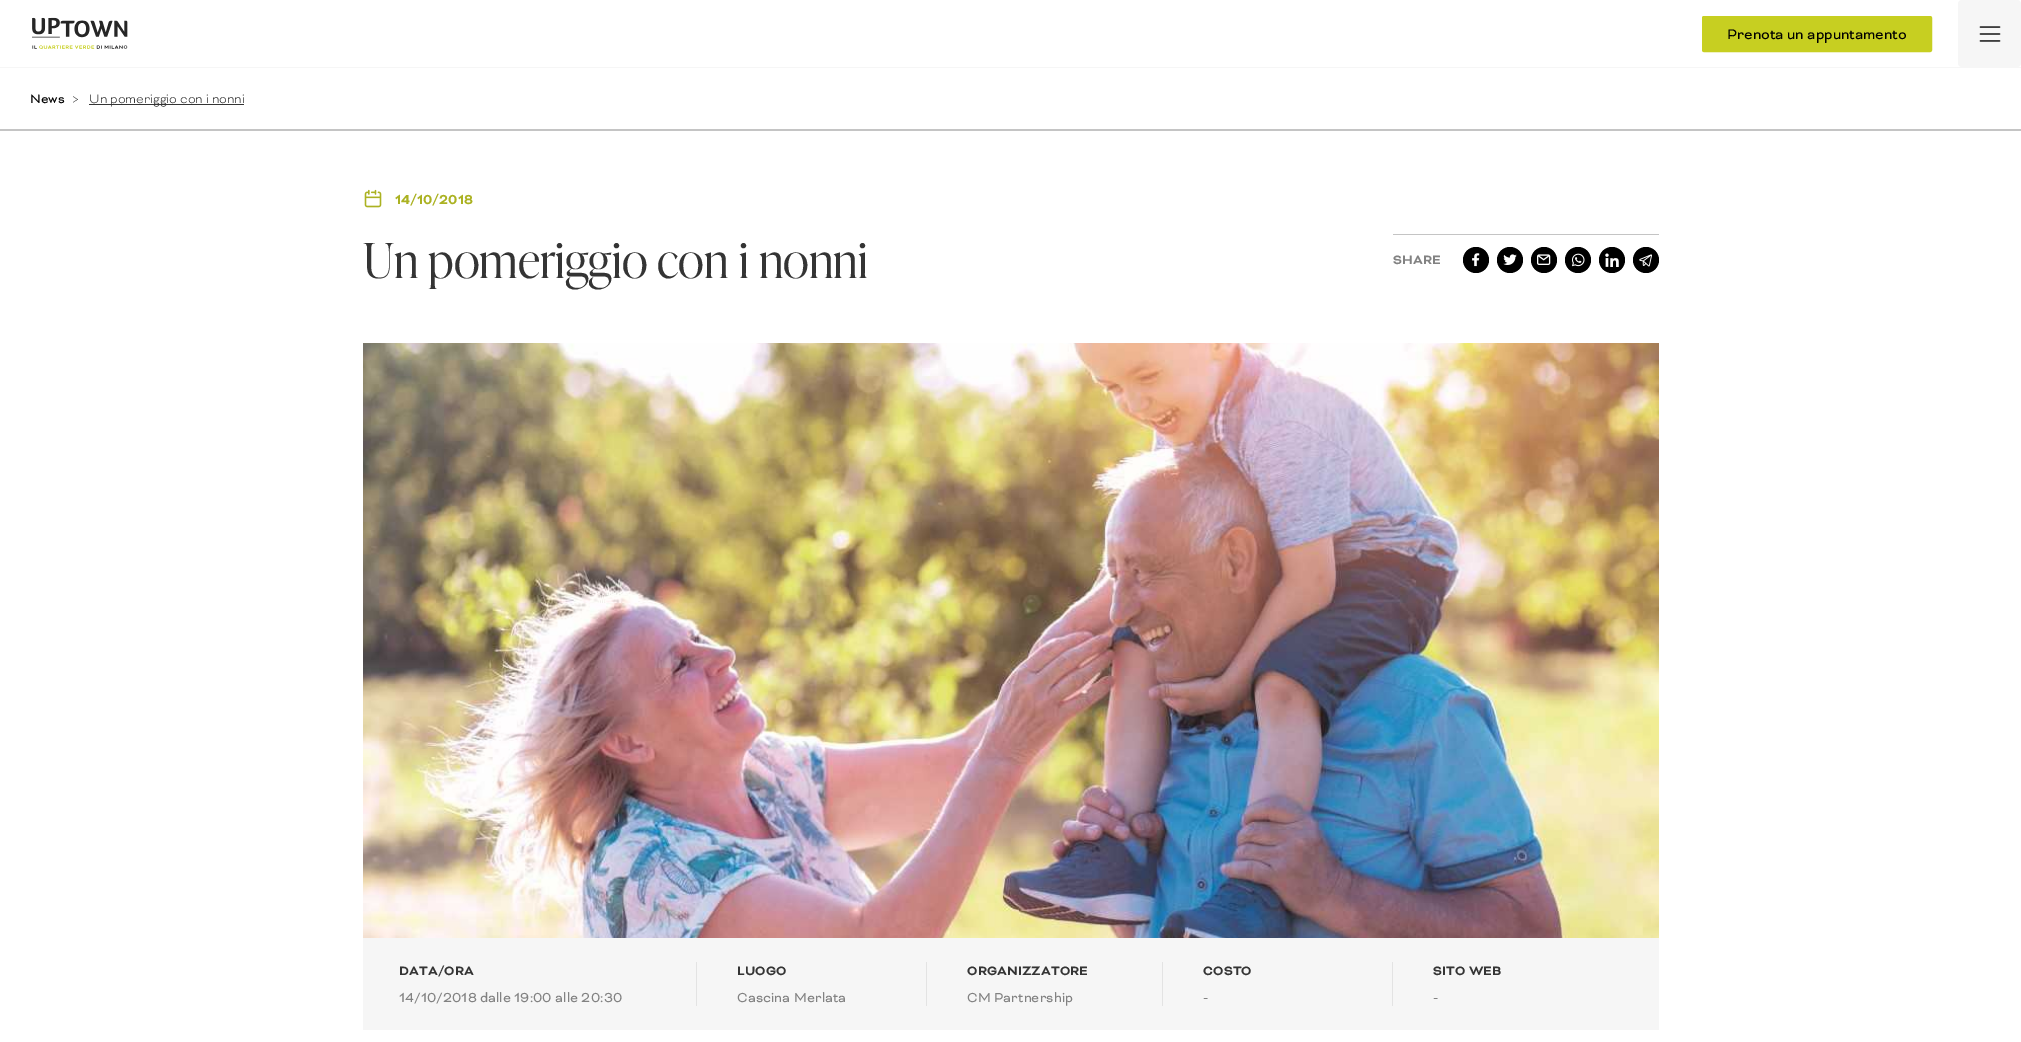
%!PS
<< /PageSize [2021 1042] >> setpagedevice
/rgb { 3 { 255 div 3 1 roll } repeat setrgbcolor } def
/font { [ exch dup neg 0 0 3 -1 roll 0 0 ] selectfont } def
/circle { newpath 0 360 arc closepath } def
/roundrect { 5 dict begin { /r /h /w /y /x } { exch def } forall
  x r add y moveto x w add y 2 copy h add r arct x w add y h add x 1 index r arct
  x y h add x y r arct x y 2 copy exch w add exch r arct closepath end } def
/picture { 5 dict begin { /h /w /y /x /name } { exch def } forall
  gsave x y translate w h scale
  w h 8 [w 0 0 h 0 0] name (r) file false 3 colorimage grestore end } def
0 1042 translate 1 -1 scale
4 setmiterlimit
255 255 255 rgb
0 0 2021 1042 rectfill
246 246 246 rgb
0 67 2021 1 rectfill
(img/1.rgb) 32 17 96 33 picture
199 207 33 rgb
1702.5 16.5 229 35 1.5 roundrect gsave fill grestore
stroke
246 246 246 rgb
1958 0 63 67 4 roundrect fill
(img/2.rgb) 1979 26 22 16 picture
196 196 196 rgb
0 129 2021 2 rectfill
52 52 52 rgb
89 104 155 1 rectfill
(img/3.rgb) 364 189 18 19 picture
196 196 196 rgb
1393 234 266 1 rectfill
0 0 0 rgb
1476 260 13 circle fill
(img/4.rgb) 1472 253 8 14 picture
1510 260 13 circle fill
(img/5.rgb) 1503 254 14 11 picture
1544 260 13 circle fill
(img/6.rgb) 1537 254 14 11 picture
1578 260 13 circle fill
(img/7.rgb) 1572 253 13 14 picture
1612 260 13 circle fill
(img/8.rgb) 1605 253 14 14 picture
1646 260 13 circle fill
(img/9.rgb) 1639 254 13 13 picture
(img/10.rgb) 363 343 1296 595 picture
[
  [363 938 1296 92 246 246 246]
  [696 962 1 44 227 227 227]
  [926 962 1 44 227 227 227]
  [1162 962 1 44 227 227 227]
  [1392 962 1 44 227 227 227]
] { aload pop rgb rectfill } forall
/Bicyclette-Regular 16 font
0 0 0 rgb
1727 39 moveto (Prenota un appuntamento) show
/Bicyclette-Regular 14 font
30 103 moveto (News) show
/Bicyclette-Light 14 font
52 52 52 rgb
72 103 moveto (>) show
89 103 moveto (Un pomeriggio con i nonni) show
/Bicyclette-Bold 15 font
171 178 34 rgb
395 204 moveto (14/10/2018) show
/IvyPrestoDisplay-Light 48 font
52 52 52 rgb
363 278 moveto (Un pomeriggio con i nonni) show
/Bicyclette-Bold 14 font
130 130 130 rgb
1393 264 moveto 0.15 0 (SHARE) ashow
52 52 52 rgb
399 975 moveto 0.15 0 (DATA/ORA) ashow
/Bicyclette-Regular 15 font
130 130 130 rgb
399 1002 moveto 0.15 0 (14/10/2018 dalle 19:00 alle 20:30) ashow
/Bicyclette-Bold 14 font
52 52 52 rgb
737 975 moveto 0.15 0 (LUOGO) ashow
/Bicyclette-Regular 15 font
130 130 130 rgb
737 1002 moveto 0.15 0 (Cascina Merlata) ashow
/Bicyclette-Bold 14 font
52 52 52 rgb
967 975 moveto 0.15 0 (ORGANIZZATORE) ashow
/Bicyclette-Regular 15 font
130 130 130 rgb
967 1002 moveto 0.15 0 (CM Partnership) ashow
/Bicyclette-Bold 14 font
52 52 52 rgb
1203 975 moveto 0.15 0 (COSTO) ashow
/Bicyclette-Regular 15 font
130 130 130 rgb
1203 1002 moveto 0.15 0 (-) ashow
/Bicyclette-Bold 14 font
52 52 52 rgb
1433 975 moveto 0.15 0 (SITO WEB) ashow
/Bicyclette-Regular 15 font
130 130 130 rgb
1433 1002 moveto 0.15 0 (-) ashow
showpage
